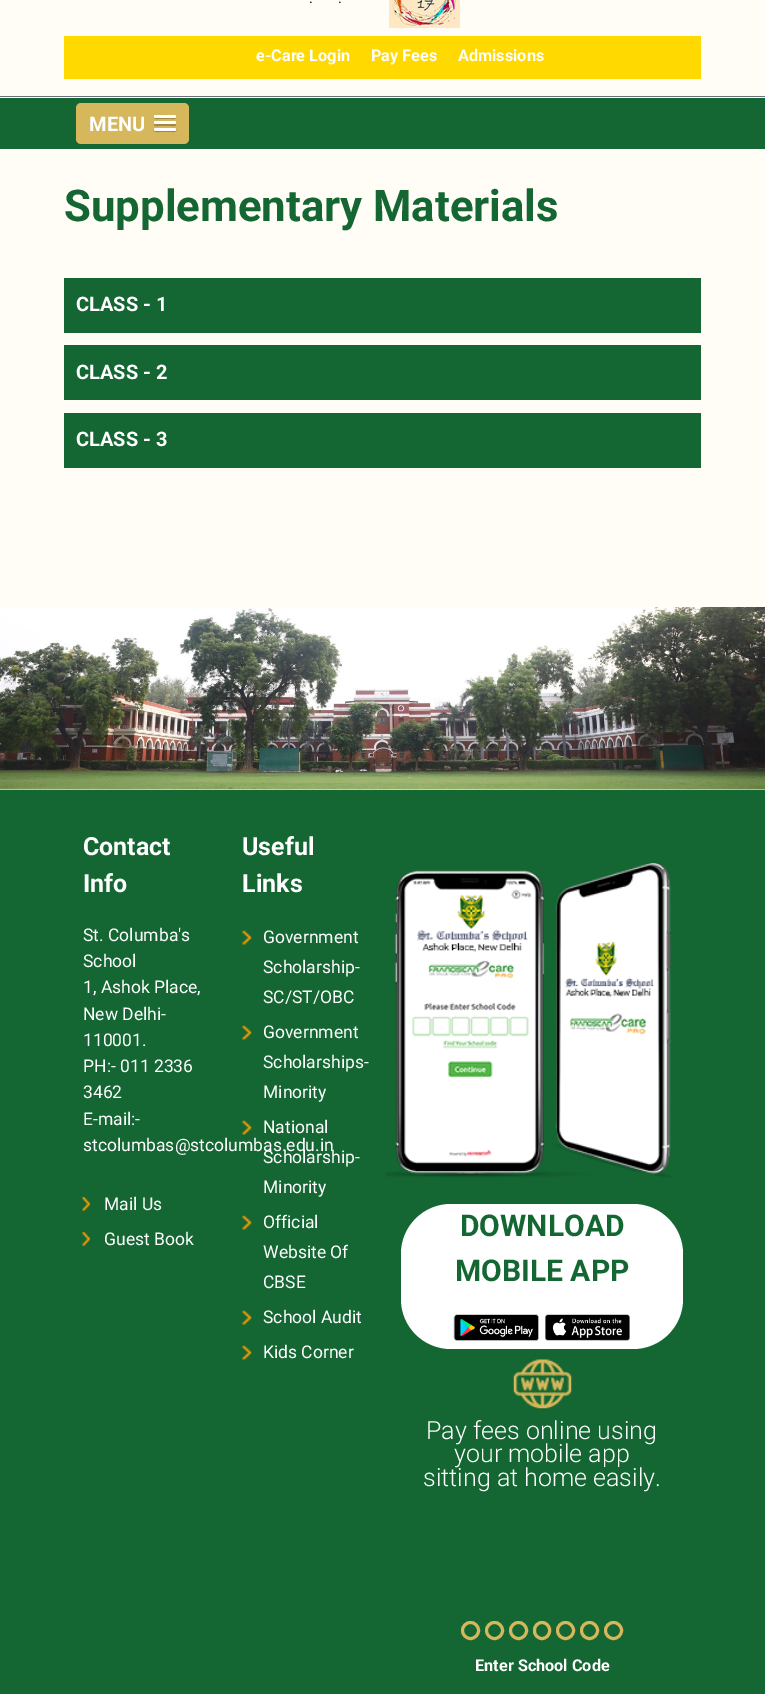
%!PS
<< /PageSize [765 1694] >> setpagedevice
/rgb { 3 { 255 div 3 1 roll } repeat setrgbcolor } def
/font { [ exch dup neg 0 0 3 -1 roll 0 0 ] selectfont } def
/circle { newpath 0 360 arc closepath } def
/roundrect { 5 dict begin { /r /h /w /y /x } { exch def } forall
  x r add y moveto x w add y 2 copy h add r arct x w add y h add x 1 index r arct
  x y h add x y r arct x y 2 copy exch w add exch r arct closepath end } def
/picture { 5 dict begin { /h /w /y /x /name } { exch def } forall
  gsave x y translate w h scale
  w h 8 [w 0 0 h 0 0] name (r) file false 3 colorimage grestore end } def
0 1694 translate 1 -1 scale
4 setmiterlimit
255 253 245 rgb
0 0 765 1694 rectfill
108 110 126 rgb
0 96 765 1 rectfill
(img/1.rgb) 389 0 71 28 picture
255 217 0 rgb
64 36 637 43 rectfill
20 102 50 rgb
0 98 765 51 rectfill
214 183 92 rgb
76 103 113 41 5 roundrect fill
161 137 69 rgb
154 117 moveto 153.5 119.5 158 119 158.5 119 curveto 171.5 119 lineto 172 119 176.5 119.5 176 117 curveto 175 118 155 118 154 117 curveto closepath fill
255 255 255 rgb
154 115 22 3 1.5 roundrect fill
161 137 69 rgb
154.5 123.5 moveto 154 125 lineto 154.5 126.5 157.5 126 158.5 126 curveto 171.5 126 lineto 172.5 126 175.5 126.5 176 125 curveto 175.5 123.5 lineto closepath fill
255 255 255 rgb
154 121 22 3 1.5 roundrect fill
161 137 69 rgb
154 129.5 moveto 152.5 132.5 158 132 158.5 132 curveto 171.5 132 lineto 172 132 177.5 132.5 176 129.5 curveto 175 130 155 130 154 129.5 curveto closepath fill
255 255 255 rgb
154 128 22 3 1.5 roundrect fill
[
  [64 278 637 55 20 102 50]
  [64 345 637 55 20 102 50]
  [64 413 637 55 20 102 50]
] { aload pop rgb rectfill } forall
(img/2.rgb) 0 607 765 183 picture
0 790 765 904 rectfill
(img/3.rgb) 242 930 10 15 picture
(img/3.rgb) 242 1025 10 15 picture
(img/3.rgb) 242 1120 10 15 picture
(img/3.rgb) 242 1215 10 15 picture
(img/3.rgb) 242 1310 10 15 picture
(img/3.rgb) 242 1345 10 15 picture
(img/4.rgb) 82 1197 8 14 picture
(img/4.rgb) 82 1232 8 14 picture
(img/5.rgb) 386 863 286 315 picture
255 255 255 rgb
401 1204 282 145 50 roundrect fill
(img/6.rgb) 453 1314 86 27 picture
(img/7.rgb) 545 1314 85 27 picture
(img/8.rgb) 513 1359 59 50 picture
214 183 92 rgb
3 setlinewidth
470.5 1630.5 8 circle stroke
494.5 1630.5 8 circle stroke
518.5 1630.5 8 circle stroke
534.5 1622.5 15 16 7.5 roundrect stroke
565.5 1630.5 8 circle stroke
589.5 1630.5 8 circle stroke
613.5 1630.5 8 circle stroke
/Roboto-Regular 15 font
33 37 41 rgb
309 3 moveto (.) show
338 3 moveto (.) show
/Roboto-Bold 16.25 font
255 255 255 rgb
[
  [(e-Care Login) 256 61]
  [(Pay Fees) 371 61]
  [(Admissions) 458 61]
] { aload pop moveto show } forall
/Roboto-Bold 20 font
89 131 moveto (MENU) show
/Roboto-Bold 43.75 font
20 102 50 rgb
64 221 moveto (Supplementary Materials) show
/Roboto-Bold 20 font
255 255 255 rgb
[
  [(CLASS - 1) 76 311]
  [(CLASS - 2) 76 379]
  [(CLASS - 3) 76 446]
] { aload pop moveto show } forall
/Roboto-Bold 25 font
242 855 moveto (Useful) show
242 892 moveto (Links) show
/Roboto-Regular 17.5 font
[
  [(Government) 263 943]
  [(Scholarship-) 263 973]
  [(SC/ST/OBC) 263 1003]
  [(Government) 263 1038]
  [(Scholarships-) 263 1068]
  [(Minority) 263 1098]
  [(National) 263 1133]
  [(Scholarship-) 263 1163]
  [(Minority) 263 1193]
  [(Official) 263 1228]
  [(Website Of) 263 1258]
  [(CBSE) 263 1288]
  [(School Audit) 263 1323]
  [(Kids Corner) 263 1358]
] { aload pop moveto show } forall
/Roboto-Bold 25 font
83 855 moveto (Contact) show
83 892 moveto (Info) show
/Roboto-Regular 17.5 font
[
  [(St. Columba's) 83 941]
  [(School) 83 967]
  [(1, Ashok Place,) 83 993]
  [(New Delhi-) 83 1020]
  [(110001.) 83 1046]
  [(PH:- 011 2336) 83 1072]
  [(3462) 83 1098]
  [(E-mail:-) 83 1125]
  [(stcolumbas@stcolumbas.edu.in) 83 1151]
  [(Mail Us) 104 1210]
  [(Guest Book) 104 1245]
] { aload pop moveto show } forall
/Roboto-Bold 30 font
20 102 50 rgb
460 1236 moveto (DOWNLOAD) show
455 1281 moveto (MOBILE APP) show
/Roboto-Light 25 font
255 255 255 rgb
[
  [(Pay fees online using) 426 1439]
  [(your mobile app) 454 1462]
  [(sitting at home easily.) 423 1486]
] { aload pop moveto show } forall
/Roboto-Bold 16.25 font
475 1671 moveto (Enter School Code) show
showpage
